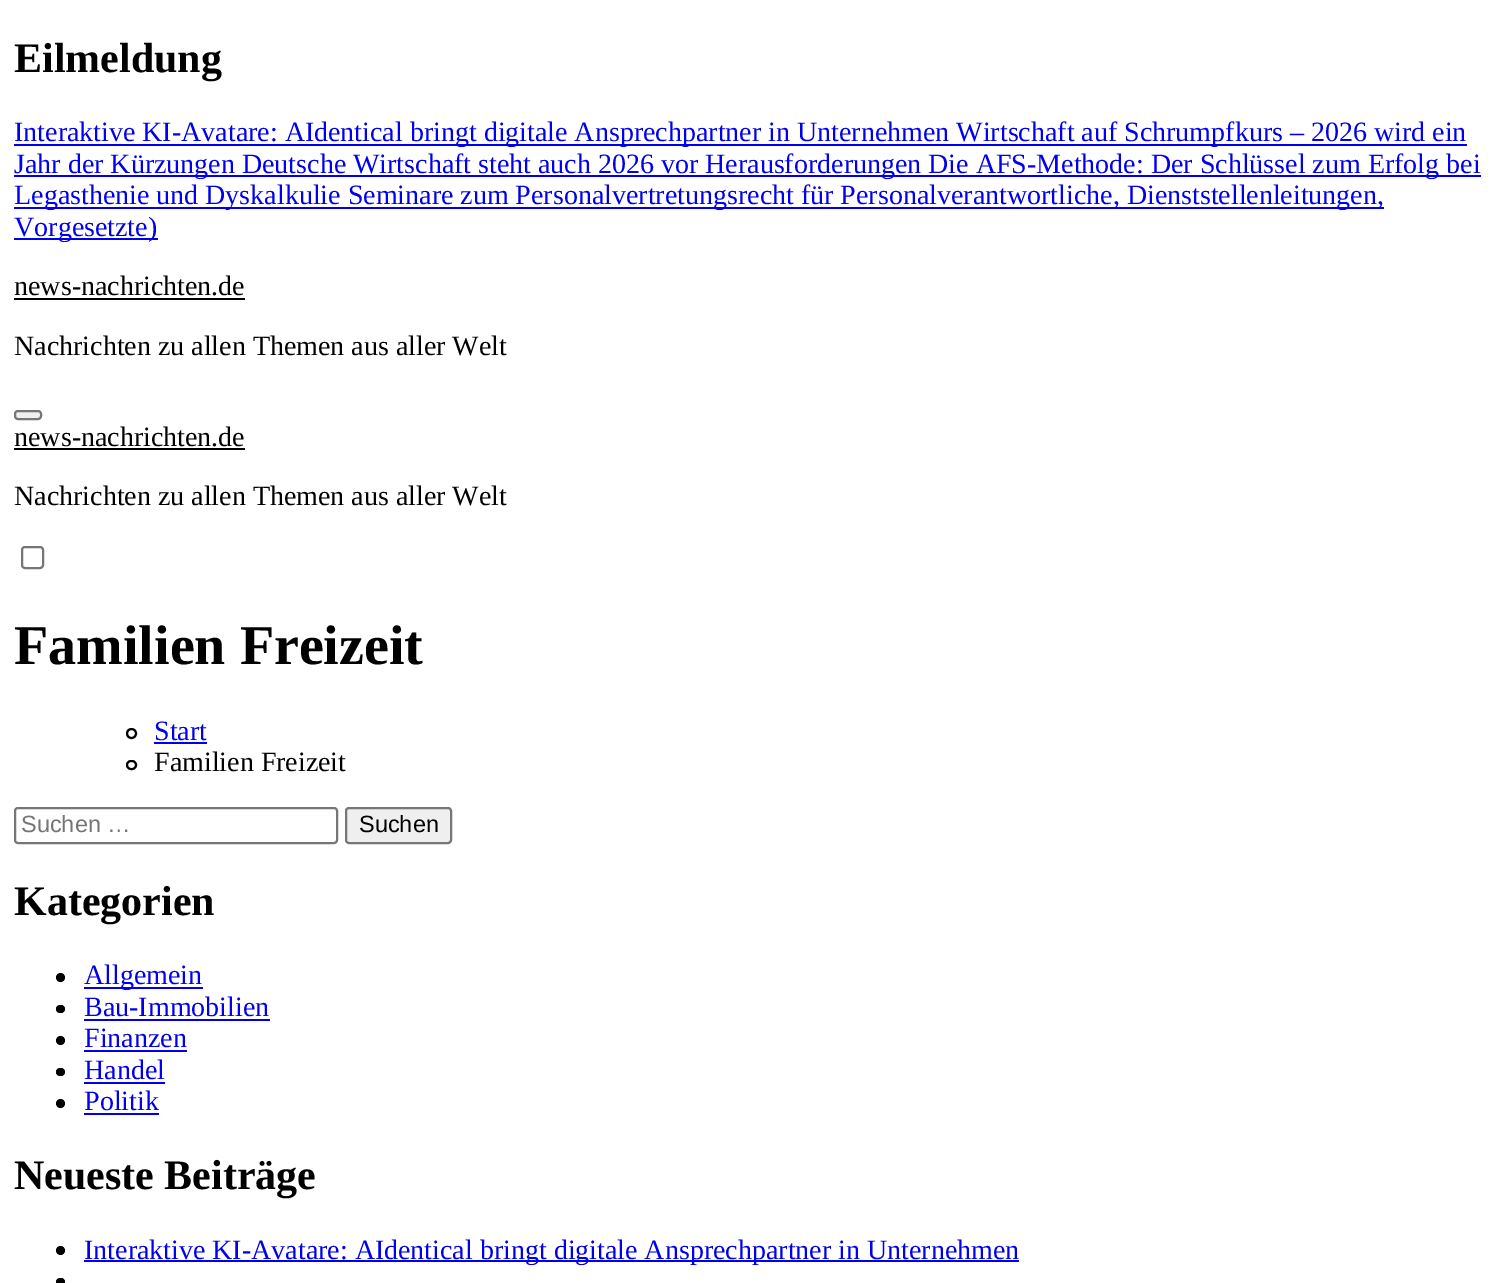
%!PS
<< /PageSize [1496 1283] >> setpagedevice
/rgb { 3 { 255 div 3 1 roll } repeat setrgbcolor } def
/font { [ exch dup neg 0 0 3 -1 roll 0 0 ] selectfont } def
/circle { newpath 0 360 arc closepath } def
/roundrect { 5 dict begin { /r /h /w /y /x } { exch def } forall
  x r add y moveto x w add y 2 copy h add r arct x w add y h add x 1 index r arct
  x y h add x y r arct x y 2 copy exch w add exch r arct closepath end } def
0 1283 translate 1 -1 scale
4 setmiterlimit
255 255 255 rgb
0 0 1496 1283 rectfill
[
  [14 144 1453 2 0 0 238]
  [14 175 1467 2 0 0 238]
  [14 207 1370 2 0 0 238]
  [14 238 144 2 0 0 238]
  [14 298 231 2 0 0 0]
] { aload pop rgb rectfill } forall
239 239 239 rgb
15 411 26 8 3 roundrect gsave fill grestore
118 118 118 rgb
2 setlinewidth
stroke
0 0 0 rgb
14 448 231 2 rectfill
118 118 118 rgb
22 547 21 21 3 roundrect stroke
0 0 0 rgb
131.5 733.5 4.5 circle stroke
0 0 238 rgb
154 742 53 2 rectfill
0 0 0 rgb
127 761 9 8 4 roundrect stroke
118 118 118 rgb
15 808 322 35 3 roundrect stroke
239 239 239 rgb
346 808 105 35 3 roundrect gsave fill grestore
118 118 118 rgb
stroke
0 0 0 rgb
60.5 977.5 4.5 circle fill
0 0 238 rgb
84 987 119 2 rectfill
0 0 0 rgb
56 1005 9 8 4 roundrect fill
0 0 238 rgb
84 1019 186 2 rectfill
0 0 0 rgb
60.5 1040.5 4.5 circle fill
0 0 238 rgb
84 1050 103 2 rectfill
0 0 0 rgb
56 1068 9 8 4 roundrect fill
0 0 238 rgb
84 1082 81 2 rectfill
0 0 0 rgb
60.5 1103.5 4.5 circle fill
0 0 238 rgb
84 1113 75 2 rectfill
0 0 0 rgb
60.5 1250.5 4.5 circle fill
0 0 238 rgb
84 1260 935 2 rectfill
0 0 0 rgb
56 1278 9 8 4 roundrect fill
/LiberationSerif-Bold 42 font
14 72 moveto (Eilmeldung) show
/LiberationSerif-Regular 28 font
0 0 238 rgb
[
  [(Interaktive KI-Avatare: AIdentical bringt digitale Ansprechpartner in Unternehmen Wirtschaft auf Schrumpfkurs – 2026 wird ein) 14 141]
  [(Jahr der Kürzungen Deutsche Wirtschaft steht auch 2026 vor Herausforderungen Die AFS-Methode: Der Schlüssel zum Erfolg bei) 14 173]
  [(Legasthenie und Dyskalkulie Seminare zum Personalvertretungsrecht für Personalverantwortliche, Dienststellenleitungen,) 14 204]
  [(Vorgesetzte\)) 14 236]
] { aload pop moveto show } forall
0 0 0 rgb
[
  [(news-nachrichten.de) 14 295]
  [(Nachrichten zu allen Themen aus aller Welt) 14 355]
  [(news-nachrichten.de) 14 446]
  [(Nachrichten zu allen Themen aus aller Welt) 14 505]
] { aload pop moveto show } forall
/LiberationSerif-Bold 56 font
14 664 moveto (Familien Freizeit) show
/LiberationSerif-Regular 28 font
0 0 238 rgb
154 740 moveto (Start) show
0 0 0 rgb
154 771 moveto (Familien Freizeit) show
/LiberationSans-Regular 23.5 font
117 117 117 rgb
21 832 moveto (Suchen …) show
0 0 0 rgb
359 832 moveto (Suchen) show
/LiberationSerif-Bold 42 font
14 915 moveto (Kategorien) show
/LiberationSerif-Regular 28 font
0 0 238 rgb
[
  [(Allgemein) 84 984]
  [(Bau-Immobilien) 84 1016]
  [(Finanzen) 84 1047]
  [(Handel) 84 1079]
  [(Politik) 84 1110]
] { aload pop moveto show } forall
/LiberationSerif-Bold 42 font
0 0 0 rgb
14 1189 moveto (Neueste Beiträge) show
/LiberationSerif-Regular 28 font
0 0 238 rgb
84 1259 moveto (Interaktive KI-Avatare: AIdentical bringt digitale Ansprechpartner in Unternehmen) show
showpage
